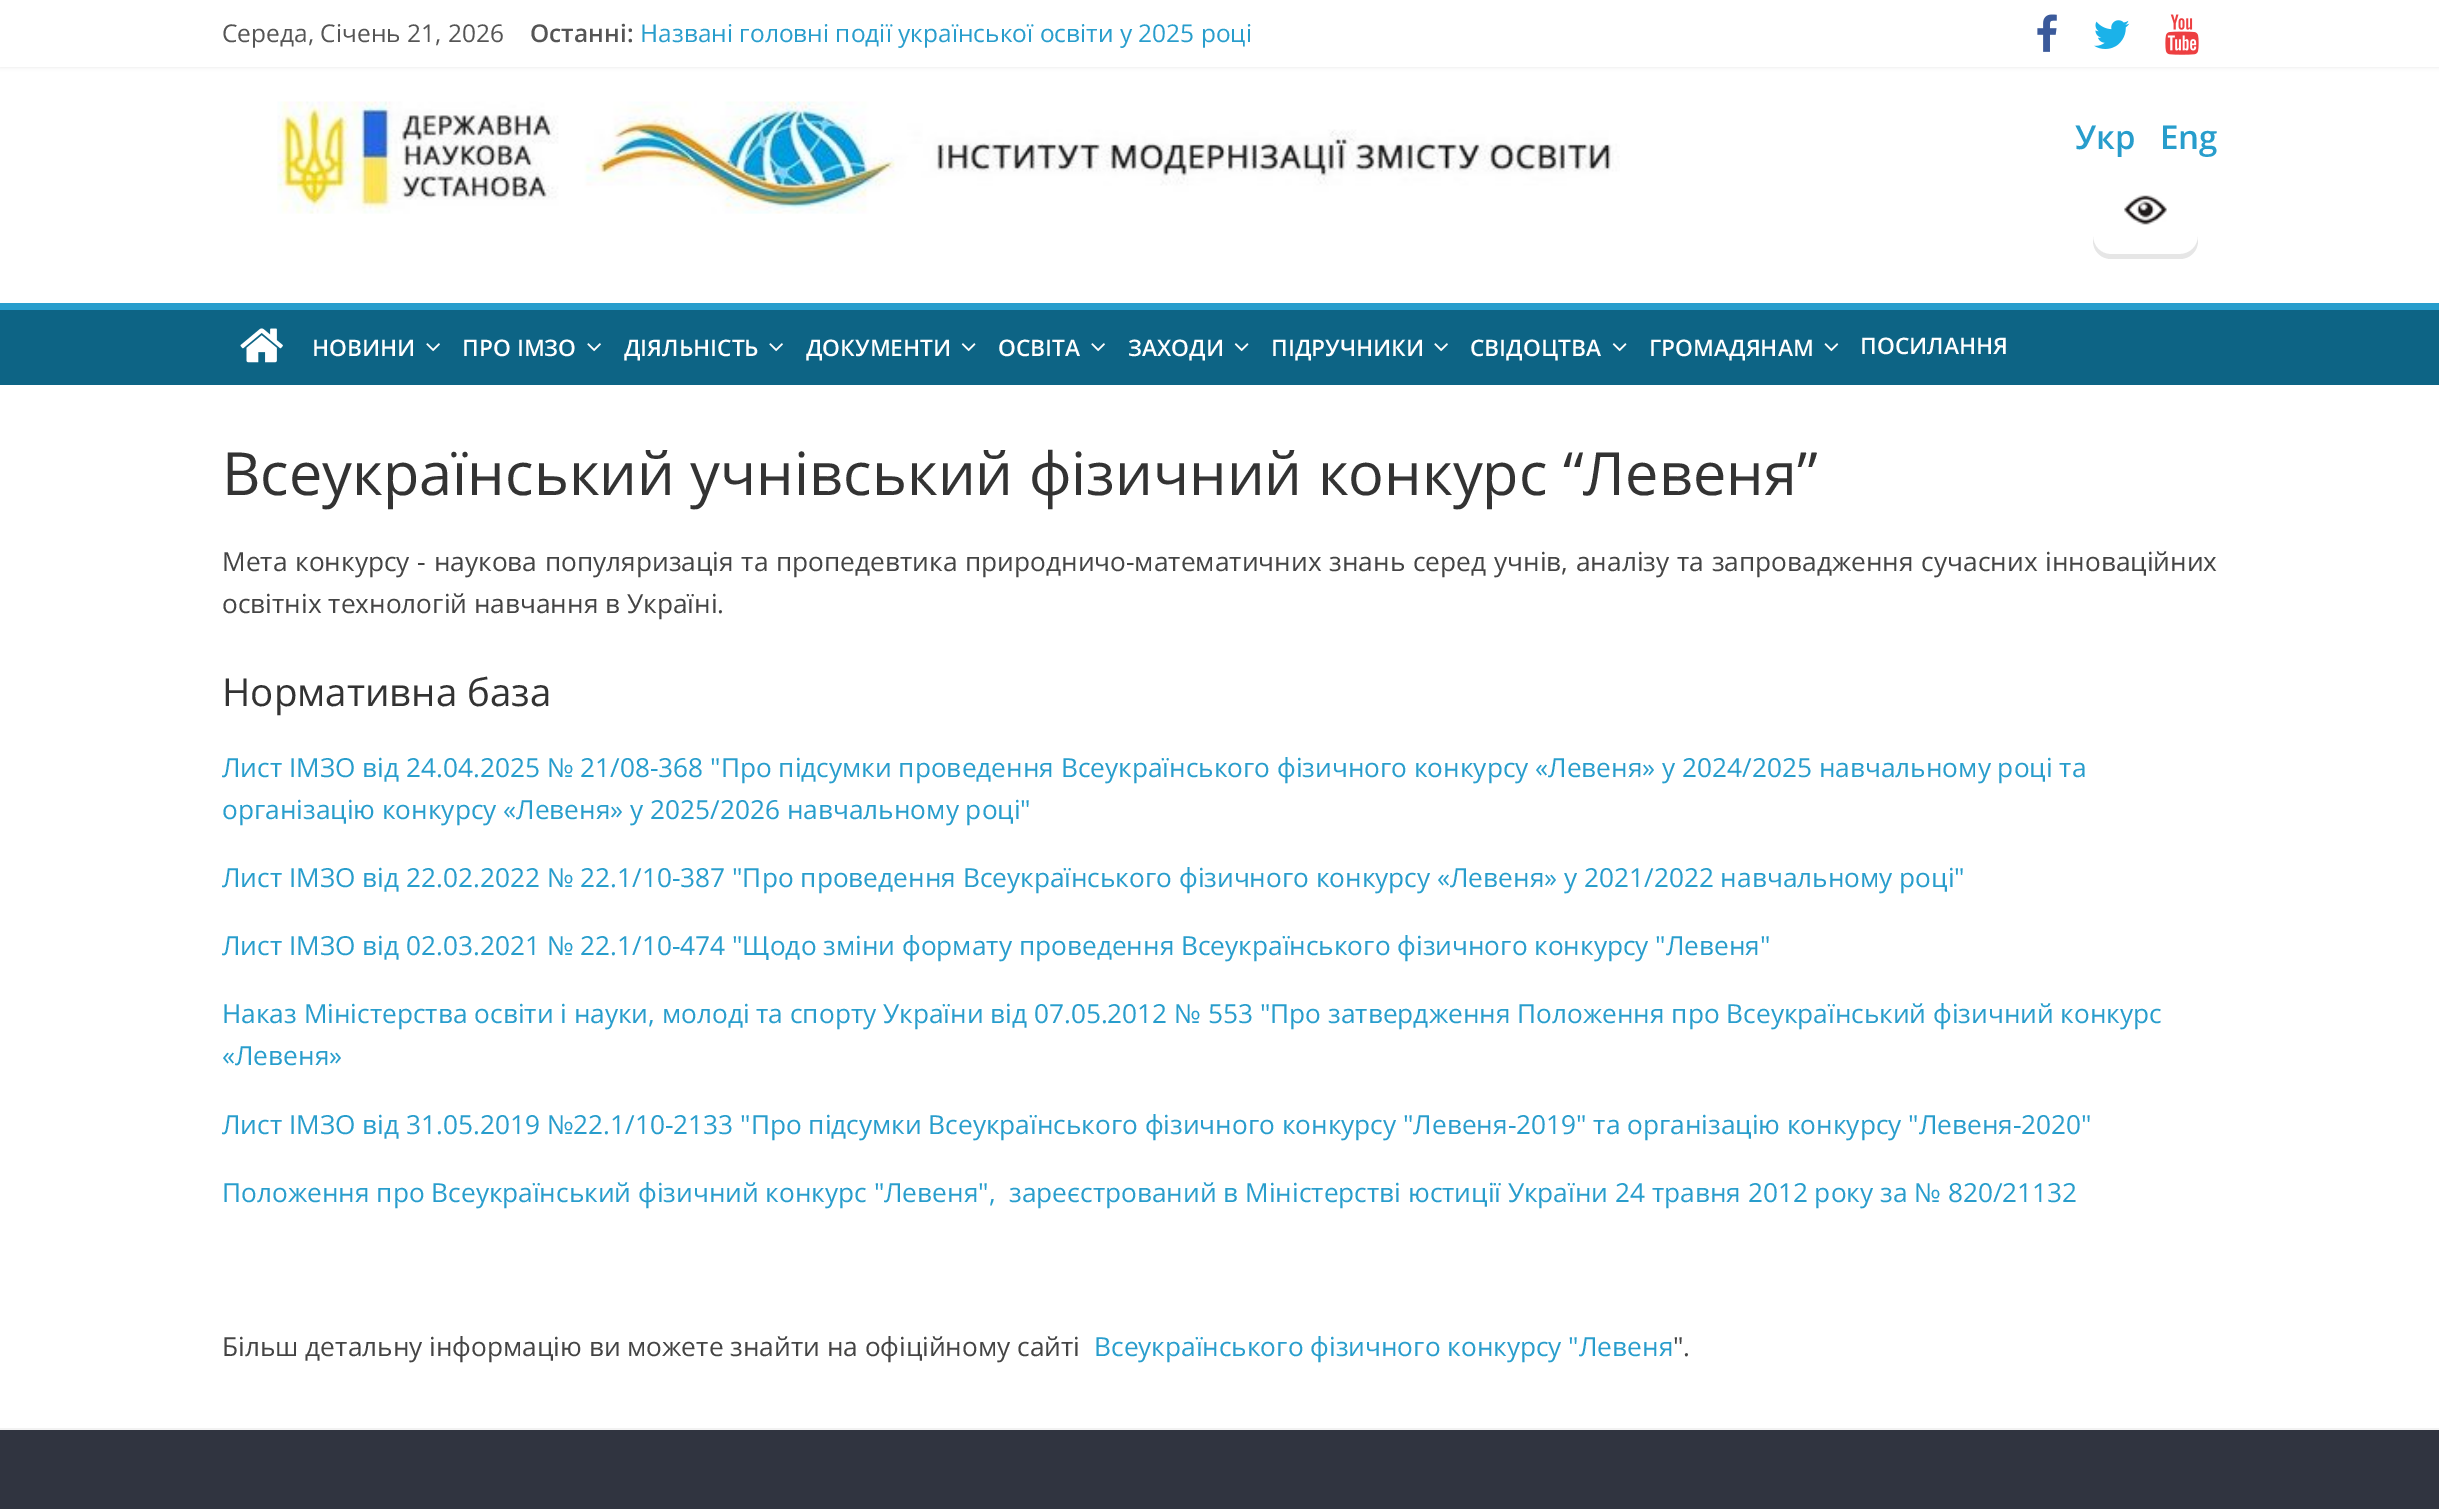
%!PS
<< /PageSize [2439 1509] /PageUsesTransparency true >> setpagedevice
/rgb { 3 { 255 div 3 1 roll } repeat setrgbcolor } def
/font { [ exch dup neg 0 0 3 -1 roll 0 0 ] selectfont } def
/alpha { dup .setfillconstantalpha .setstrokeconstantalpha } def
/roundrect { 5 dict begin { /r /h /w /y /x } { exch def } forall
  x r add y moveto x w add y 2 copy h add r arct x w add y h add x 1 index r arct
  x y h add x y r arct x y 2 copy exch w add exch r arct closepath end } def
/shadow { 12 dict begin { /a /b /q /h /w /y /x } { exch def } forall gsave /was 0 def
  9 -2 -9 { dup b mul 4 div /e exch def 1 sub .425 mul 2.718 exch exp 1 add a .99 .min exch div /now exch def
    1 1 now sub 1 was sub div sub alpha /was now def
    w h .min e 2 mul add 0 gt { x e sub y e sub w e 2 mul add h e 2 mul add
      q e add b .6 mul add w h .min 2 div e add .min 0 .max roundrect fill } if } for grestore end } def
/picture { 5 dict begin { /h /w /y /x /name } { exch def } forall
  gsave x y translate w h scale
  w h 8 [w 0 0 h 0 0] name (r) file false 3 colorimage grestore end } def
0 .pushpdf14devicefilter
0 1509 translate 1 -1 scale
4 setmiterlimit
255 255 255 rgb
0 0 2439 1509 rectfill
0 0 0 rgb
0 0 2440 67 0 2 0.1 shadow
255 255 255 rgb
0 0 2439 67 rectfill
(img/1.rgb) 2037 14 20 38 picture
(img/2.rgb) 2094 20 36 29 picture
(img/3.rgb) 2165 14 34 41 picture
(img/4.rgb) 277 101 1343 113 picture
230 230 230 rgb
2093 236 moveto 2093 241 lineto 2093 251 2101 259 2111 259 curveto 2180 259 lineto 2190 259 2198 251 2198 241 curveto 2198 236 lineto 2198 246 2190 254 2180 254 curveto 2110 254 lineto 2101 254 2093 246 2093 236 curveto closepath fill
(img/5.rgb) 2124 195 43 30 picture
13 100 133 rgb
0 310 2439 75 rectfill
40 157 204 rgb
0 303 2439 7 rectfill
(img/6.rgb) 240 328 43 35 picture
(img/7.rgb) 426 343 14 9 picture
(img/7.rgb) 587 343 14 9 picture
(img/7.rgb) 769 343 14 9 picture
(img/8.rgb) 961 343 15 9 picture
(img/7.rgb) 1091 343 14 9 picture
(img/8.rgb) 1234 343 15 9 picture
(img/7.rgb) 1434 343 14 9 picture
(img/8.rgb) 1612 343 15 9 picture
(img/9.rgb) 1824 343 15 9 picture
48 52 64 rgb
0 1430 2439 79 rectfill
242 242 242 rgb
0 1428 2439 2 rectfill
/OpenSans-Regular 24.5 font
85 85 85 rgb
222 42 moveto (Середа, Січень 21, 2026) show
/OpenSans-SemiBold 24.5 font
530 42 moveto (Останні:) show
/OpenSans-Regular 24.5 font
40 157 204 rgb
640 42 moveto (Названі головні події української освіти у 2025 році) show
/OpenSans-SemiBold 33 font
2075 149 moveto (Укр) show
2160 149 moveto (Eng) show
/OpenSans-SemiBold 22.75 font
255 255 255 rgb
[
  [(НОВИНИ) 312 356]
  [(ПРО ІМЗО) 462 356]
  [(ДІЯЛЬНІСТЬ) 624 356]
  [(ДОКУМЕНТИ) 806 356]
  [(ОСВІТА) 998 356]
  [(ЗАХОДИ) 1128 356]
  [(ПІДРУЧНИКИ) 1271 356]
  [(СВІДОЦТВА) 1470 356]
  [(ГРОМАДЯНАМ) 1649 356]
  [(ПОСИЛАННЯ) 1860 354]
] { aload pop moveto show } forall
/OpenSans-Regular 59.5 font
51 51 51 rgb
222 495 moveto (Всеукраїнський учнівський фізичний конкурс “Левеня”) show
/OpenSans-Regular 26.25 font
68 68 68 rgb
222 571 moveto 1 0 32 (Мета конкурсу - наукова популяризація та пропедевтика природничо-математичних знань серед учнів, аналізу та запровадження сучасних інноваційних) widthshow
222 613 moveto (освітніх технологій навчання в Україні.) show
/OpenSans-Regular 38.5 font
51 51 51 rgb
222 706 moveto (Нормативна база) show
/OpenSans-Regular 26.25 font
40 157 204 rgb
[
  [(Лист ІМЗО від 24.04.2025 № 21/08-368 "Про підсумки проведення Всеукраїнського фізичного конкурсу «Левеня» у 2024/2025 навчальному році та) 222 777]
  [(організацію конкурсу «Левеня» у 2025/2026 навчальному році") 222 819]
  [(Лист ІМЗО від 22.02.2022 № 22.1/10-387 "Про проведення Всеукраїнського фізичного конкурсу «Левеня» у 2021/2022 навчальному році") 222 887]
  [(Лист ІМЗО від 02.03.2021 № 22.1/10-474 "Щодо зміни формату проведення Всеукраїнського фізичного конкурсу "Левеня") 222 955]
  [(Наказ Міністерства освіти і науки, молоді та спорту України від 07.05.2012 № 553 "Про затвердження Положення про Всеукраїнський фізичний конкурс) 222 1023]
  [(«Левеня») 222 1065]
  [(Лист ІМЗО від 31.05.2019 №22.1/10-2133 "Про підсумки Всеукраїнського фізичного конкурсу "Левеня-2019" та організацію конкурсу "Левеня-2020") 222 1134]
  [(Положення про Всеукраїнський фізичний конкурс "Левеня",  зареєстрований в Міністерстві юстиції України 24 травня 2012 року за № 820/21132) 222 1202]
] { aload pop moveto show } forall
68 68 68 rgb
222 1356 moveto (Більш детальну інформацію ви можете знайти на офіційному сайті) show
40 157 204 rgb
1094 1356 moveto (Всеукраїнського фізичного конкурсу "Левеня) show
68 68 68 rgb
1673 1356 moveto (".) show
.poppdf14devicefilter showpage
